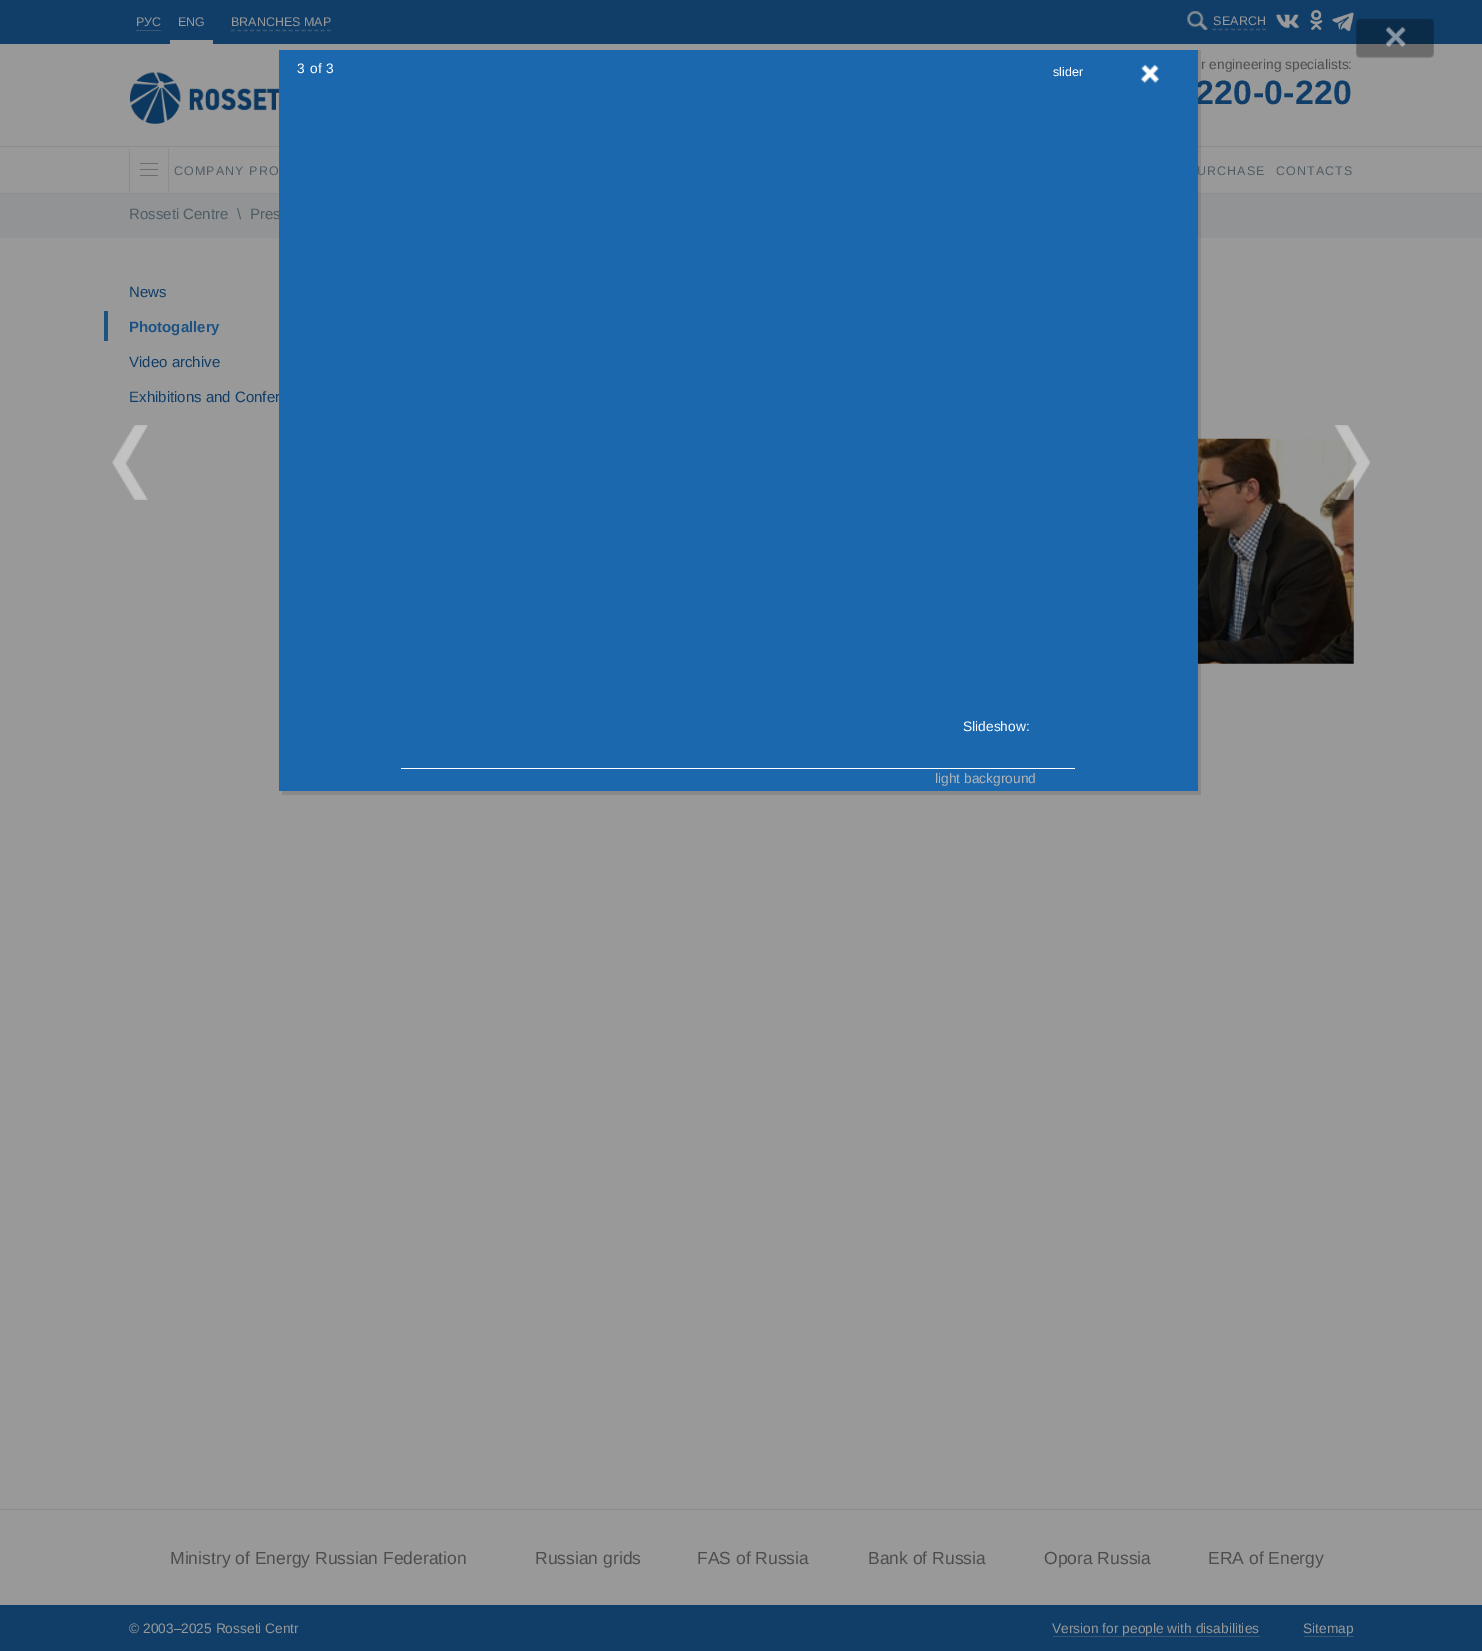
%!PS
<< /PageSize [1482 1651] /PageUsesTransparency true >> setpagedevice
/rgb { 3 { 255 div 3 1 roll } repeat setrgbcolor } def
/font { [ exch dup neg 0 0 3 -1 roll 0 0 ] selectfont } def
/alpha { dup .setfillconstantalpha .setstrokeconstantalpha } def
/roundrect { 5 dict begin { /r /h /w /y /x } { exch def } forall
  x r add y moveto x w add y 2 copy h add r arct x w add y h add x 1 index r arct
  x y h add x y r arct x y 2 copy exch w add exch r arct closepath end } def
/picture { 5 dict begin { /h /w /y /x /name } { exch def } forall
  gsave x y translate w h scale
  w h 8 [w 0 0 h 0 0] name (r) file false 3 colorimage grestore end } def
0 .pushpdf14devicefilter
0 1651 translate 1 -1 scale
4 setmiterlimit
153 153 153 rgb
0 0 1482 1651 rectfill
[
  [0 0 1482 44 16 62 104]
  [136 30 25 1 57 89 119]
  [170 40 43 4 153 153 153]
] { aload pop rgb rectfill } forall
57 89 119 rgb
1.2 setlinewidth
[3.75 2.66] 0 setdash
231 30.5 moveto 331 30.5 lineto stroke
(img/1.rgb) 1187 11 21 19 picture
[3.75 2.5] 0 setdash
1212.5 29.5 moveto 1266 29.5 lineto stroke
(img/2.rgb) 1276 14 23 15 picture
(img/3.rgb) 1310 10 13 20 picture
(img/4.rgb) 1332 12 22 20 picture
(img/5.rgb) 112 425 36 75 picture
[
  [0 146 1482 1 140 140 140]
  [0 193 1482 1 140 140 140]
  [0 194 1482 44 145 147 148]
] { aload pop rgb rectfill } forall
(img/10.rgb) 1198 438 156 226 picture
0.1 alpha
0 0 0 rgb
282 50 919 745 rectfill
1 alpha
(img/7.rgb) 1356 18 78 40 picture
(img/8.rgb) 1335 425 35 75 picture
(img/9.rgb) 130 72 149 52 picture
140 140 140 rgb
169 148 moveto 169 192 lineto 168 192 lineto 168 149 lineto closepath 129 192 moveto 129 148 lineto 130 149 lineto 130 192 lineto closepath fill
106 110 113 rgb
140 169 18 1 0.5 roundrect fill
140 163 18 1 0.5 roundrect fill
140 175 18 1 0.5 roundrect fill
[
  [104 311 4 30 29 82 131]
  [0 1509 1482 1 140 140 140]
  [0 1605 1482 46 16 62 104]
  [1053 1636 207 1 58 90 119]
  [1304 1636 50 1 58 90 119]
] { aload pop rgb rectfill } forall
/LiberationSans-Regular 12.5 font
153 153 153 rgb
[
  [(РУС) 136 26]
  [(ENG) 178 26]
  [(BRANCHES MAP) 231 26]
] { aload pop moveto show } forall
1213 25 moveto 0.25 0 (SEARCH) ashow
/LiberationSans-Regular 13.75 font
77 76 79 rgb
1201 69 moveto (r engineering specialists:) show
/LiberationSans-Bold 33.75 font
16 62 104 rgb
1195 104 moveto 0.4 0 (220-0-220) ashow
/LiberationSans-Regular 12.5 font
79 92 100 rgb
174 175 moveto 1.1 0 (COMPANY PRO) ashow
1197 175 moveto 1.1 0 (URCHASE) ashow
1276 175 moveto 1.1 0 (CONTACTS) ashow
/LiberationSans-Regular 15 font
[
  [(Rosseti Centre) 129 219]
  [(\\) 237 219]
  [(Pres) 250 219]
] { aload pop moveto show } forall
16 62 104 rgb
129 297 moveto (News) show
/LiberationSans-Bold 15 font
29 82 131 rgb
129 332 moveto (Photogallery) show
/LiberationSans-Regular 15 font
16 62 104 rgb
129 367 moveto (Video archive) show
129 402 moveto (Exhibitions and Confer) show
27 104 174 rgb
279 50 919 741 rectfill
/LiberationSans-Regular 13.75 font
179 179 179 rgb
935 783 moveto (light background) show
255 255 255 rgb
963 731 moveto (Slideshow:) show
401 768 674 1 rectfill
(img/6.rgb) 1141 64 18 19 picture
/LiberationSans-Regular 12.5 font
1053 76 moveto (slider) show
/LiberationSans-Regular 13.75 font
[
  [(3) 326 73]
  [(of) 310 73]
  [(3) 297 73]
] { aload pop moveto show } forall
/LiberationSans-Regular 17.5 font
77 76 79 rgb
[
  [(Ministry of Energy Russian Federation) 170 1564]
  [(Russian grids) 535 1564]
  [(FAS of Russia) 697 1564]
  [(Bank of Russia) 868 1564]
  [(Opora Russia) 1044 1564]
  [(ERA of Energy) 1208 1564]
] { aload pop moveto show } forall
/LiberationSans-Regular 13.75 font
153 153 153 rgb
[
  [(© 2003–2025 Rosseti Centr) 129 1633]
  [(Version for people with disabilities) 1052 1633]
  [(Sitemap) 1303 1633]
] { aload pop moveto show } forall
.poppdf14devicefilter showpage
